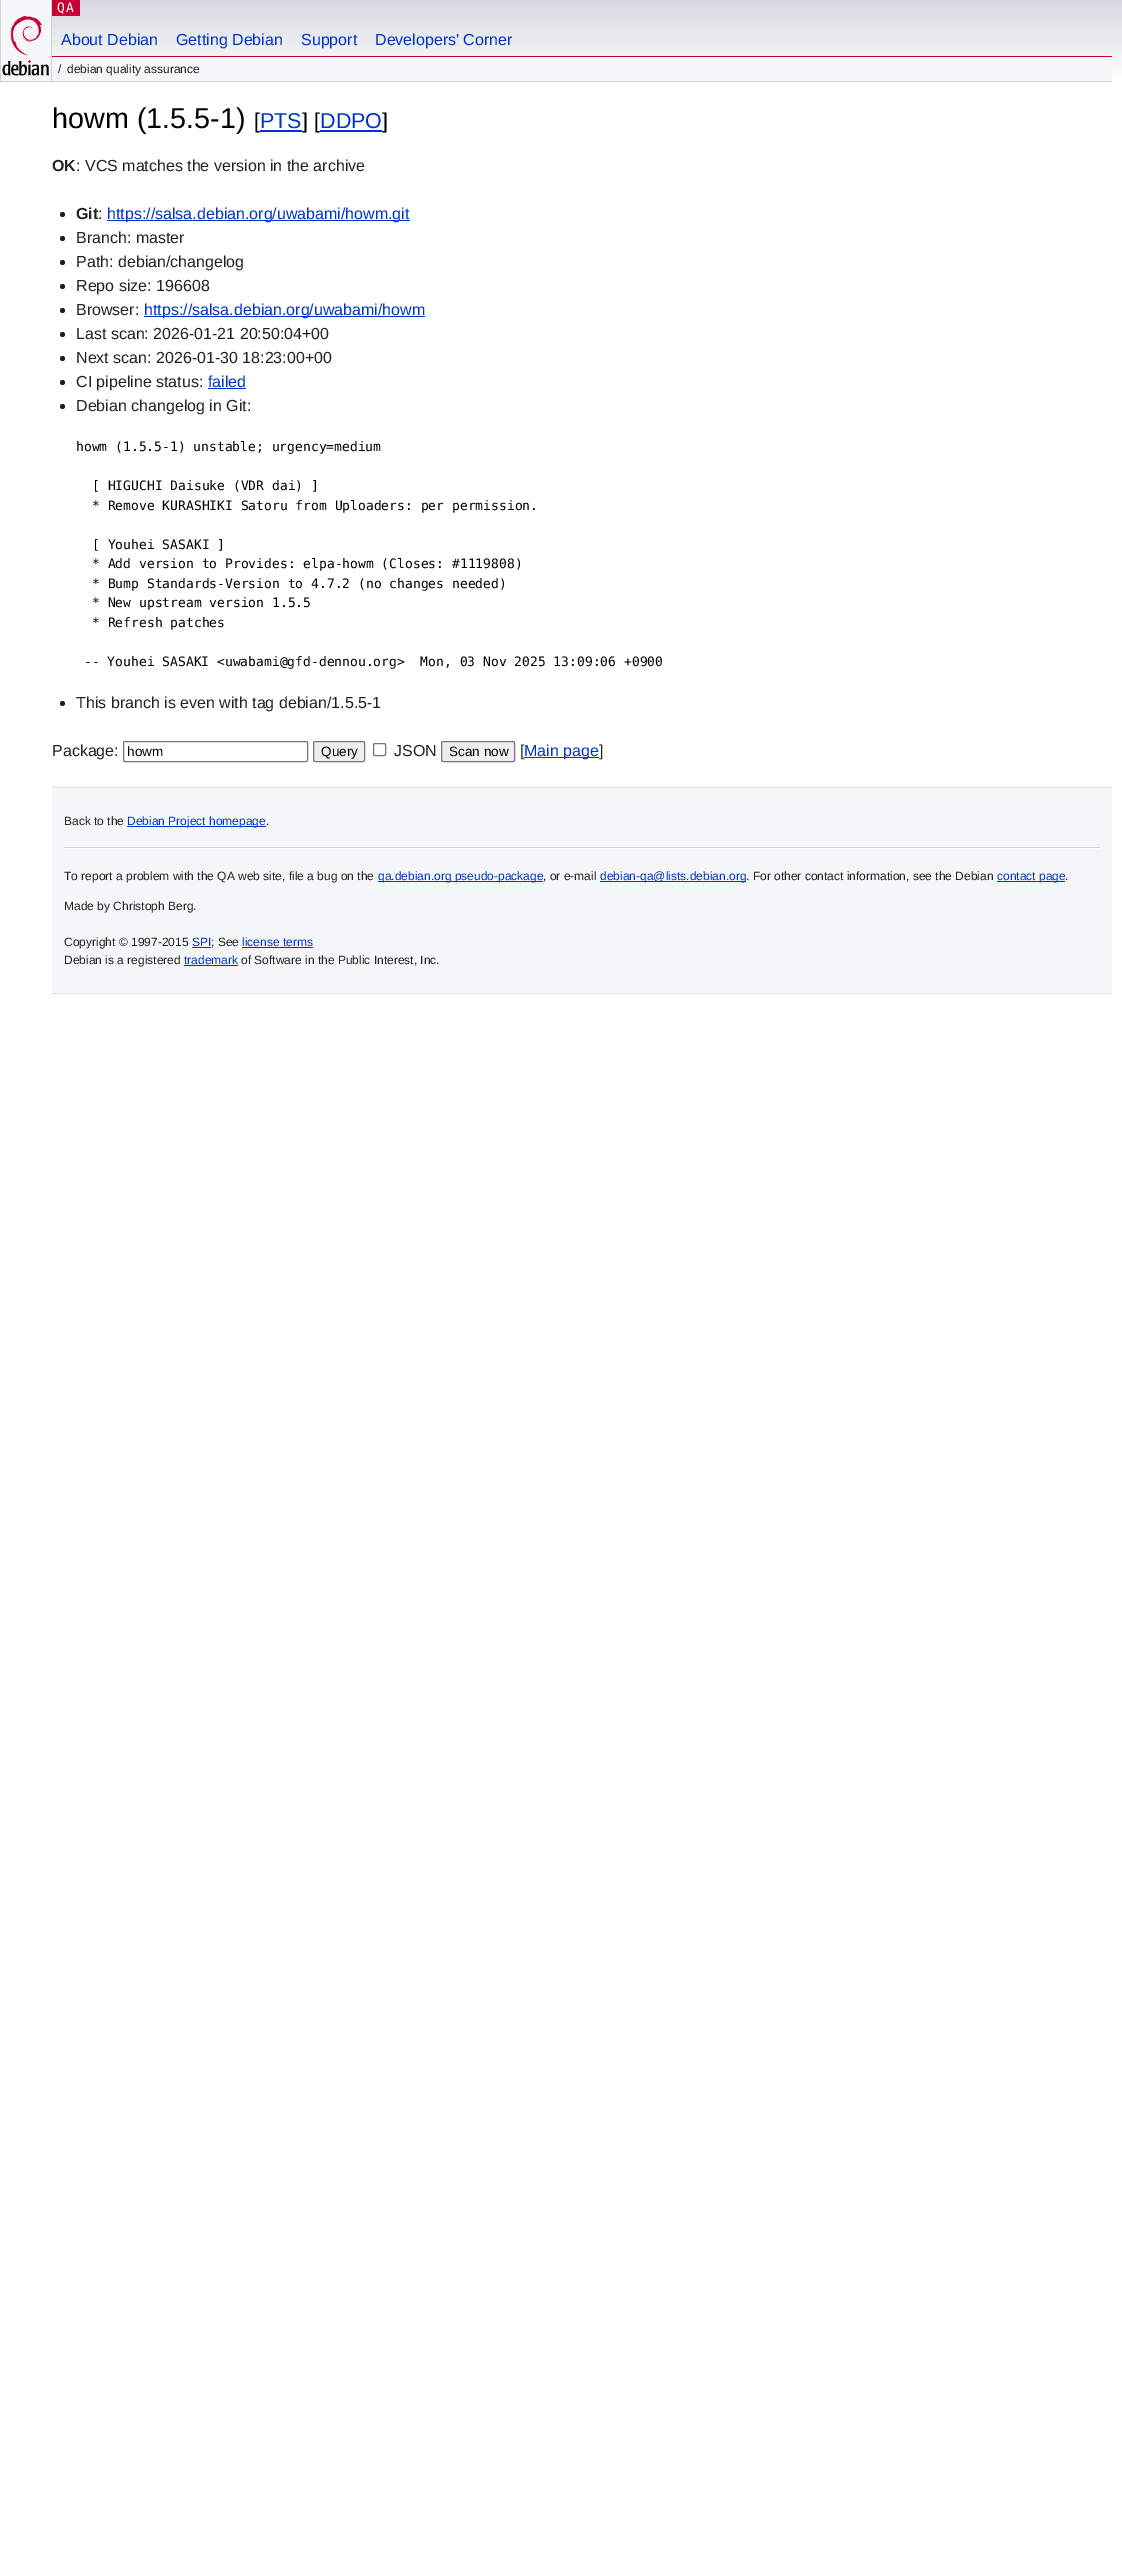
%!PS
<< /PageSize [1122 2557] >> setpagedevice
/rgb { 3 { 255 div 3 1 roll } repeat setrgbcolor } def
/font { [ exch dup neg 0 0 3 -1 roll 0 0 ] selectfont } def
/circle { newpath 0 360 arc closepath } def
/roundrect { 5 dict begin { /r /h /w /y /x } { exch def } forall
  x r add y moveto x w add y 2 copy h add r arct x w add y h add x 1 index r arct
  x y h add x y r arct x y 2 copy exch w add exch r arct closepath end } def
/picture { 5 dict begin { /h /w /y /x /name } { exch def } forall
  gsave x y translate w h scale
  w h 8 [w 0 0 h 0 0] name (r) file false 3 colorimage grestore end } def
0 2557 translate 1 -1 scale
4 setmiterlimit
255 255 255 rgb
0 0 1122 2557 rectfill
gsave 52 0 moveto 1122 0 lineto 1122 77 lineto 52 77 lineto closepath clip newpath
<< /ShadingType 2 /ColorSpace /DeviceRGB /Coords [561 0 561 82] /Extend [true true] /Function << /FunctionType 2 /Domain [0 1] /C0 [0.843 0.851 0.886] /C1 [1 1 1] /N 1 >> >> shfill grestore
[
  [1 0 50 81 245 246 247]
  [51 0 1 82 210 211 215]
  [0 81 52 1 210 211 215]
  [0 0 1 82 210 211 215]
] { aload pop rgb rectfill } forall
(img/1.rgb) 2 16 47 60 picture
[
  [52 0 28 16 199 0 54]
  [52 56 1060 1 199 0 54]
  [52 66 1060 15 245 246 247]
  [52 81 1060 1 210 211 215]
  [260 130 42 2 0 53 199]
  [320 130 62 2 0 53 199]
] { aload pop rgb rectfill } forall
34 34 34 rgb
62.5 214.5 2.5 circle fill
0 53 199 rgb
107 220 303 1 rectfill
34 34 34 rgb
62.5 238.5 2.5 circle fill
62.5 262.5 2.5 circle fill
62.5 286.5 2.5 circle fill
62.5 310.5 2.5 circle fill
0 53 199 rgb
144 316 281 1 rectfill
34 34 34 rgb
62.5 334.5 2.5 circle fill
62.5 358.5 2.5 circle fill
62.5 382.5 2.5 circle fill
0 53 199 rgb
208 388 38 1 rectfill
34 34 34 rgb
62.5 406.5 2.5 circle fill
62.5 703.5 2.5 circle fill
118 118 118 rgb
123.5 741.5 184 20 1.5 roundrect stroke
239 239 239 rgb
313.5 741.5 51 20 1.5 roundrect gsave fill grestore
118 118 118 rgb
stroke
373.5 743.5 12 12 1.5 roundrect stroke
239 239 239 rgb
441.5 741.5 73 20 1.5 roundrect gsave fill grestore
118 118 118 rgb
stroke
[
  [52 788 1060 205 245 246 247]
  [52 787 1060 1 223 223 224]
  [52 993 1060 1 223 223 224]
  [127 826 139 1 0 53 199]
  [64 847 1036 1 210 211 215]
  [64 848 1036 1 255 255 255]
  [378 881 165 1 0 53 199]
  [600 881 146 1 0 53 199]
  [997 881 68 1 0 53 199]
  [192 947 19 1 0 53 199]
  [242 947 71 1 0 53 199]
  [184 965 54 1 0 53 199]
] { aload pop rgb rectfill } forall
/DejaVuSansMono-Regular 13 font
255 255 255 rgb
57 12 moveto 1 0 (QA) ashow
/LiberationSans-Regular 16 font
0 53 199 rgb
[
  [(About Debian) 61 45]
  [(Getting Debian) 176 45]
  [(Support) 301 45]
  [(Developers' Corner) 375 45]
] { aload pop moveto show } forall
/LiberationSans-Regular 12 font
34 34 34 rgb
58 73 moveto (/) show
67 73 moveto (debian quality assurance) show
/LiberationSans-Regular 28.75 font
0 0 0 rgb
52 128 moveto (howm \(1.5.5-1\)) show
/LiberationSans-Regular 21.5 font
254 128 moveto ([) show
0 53 199 rgb
260 128 moveto (PTS) show
0 0 0 rgb
302 128 moveto (] [) show
0 53 199 rgb
320 128 moveto (DDPO) show
0 0 0 rgb
382 128 moveto (]) show
/LiberationSans-Bold 16 font
34 34 34 rgb
52 171 moveto (OK) show
/LiberationSans-Regular 16 font
76 171 moveto (: VCS matches the version in the archive) show
/LiberationSans-Bold 16 font
76 219 moveto (Git) show
/LiberationSans-Regular 16 font
98 219 moveto (:) show
0 53 199 rgb
107 219 moveto (https://salsa.debian.org/uwabami/howm.git) show
34 34 34 rgb
[
  [(Branch: master) 76 243]
  [(Path: debian/changelog) 76 267]
  [(Repo size: 196608) 76 291]
  [(Browser:) 76 315]
] { aload pop moveto show } forall
0 53 199 rgb
144 315 moveto (https://salsa.debian.org/uwabami/howm) show
34 34 34 rgb
[
  [(Last scan: 2026-01-21 20:50:04+00) 76 339]
  [(Next scan: 2026-01-30 18:23:00+00) 76 363]
  [(CI pipeline status:) 76 387]
] { aload pop moveto show } forall
0 53 199 rgb
208 387 moveto (failed) show
34 34 34 rgb
76 411 moveto (Debian changelog in Git:) show
/DejaVuSansMono-Regular 13 font
0 0 0 rgb
[
  [(howm \(1.5.5-1\) unstable; urgency=medium) 76 451]
  [([ HIGUCHI Daisuke \(VDR dai\) ]) 92 490]
  [(* Remove KURASHIKI Satoru from Uploaders: per permission.) 92 510]
  [([ Youhei SASAKI ]) 92 549]
  [(* Add version to Provides: elpa-howm \(Closes: #1119808\)) 92 568]
  [(* Bump Standards-Version to 4.7.2 \(no changes needed\)) 92 588]
  [(* New upstream version 1.5.5) 92 607]
  [(* Refresh patches) 92 627]
  [(-- Youhei SASAKI <uwabami@gfd-dennou.org>  Mon, 03 Nov 2025 13:09:06 +0900) 84 666]
] { aload pop moveto show } forall
/LiberationSans-Regular 16 font
34 34 34 rgb
76 708 moveto (This branch is even with tag debian/1.5.5-1) show
52 756 moveto (Package:) show
/LiberationSans-Regular 13.5 font
0 0 0 rgb
127 756 moveto (howm) show
321 756 moveto (Query) show
/LiberationSans-Regular 16 font
34 34 34 rgb
394 756 moveto (JSON) show
/LiberationSans-Regular 13.5 font
0 0 0 rgb
449 756 moveto (Scan now) show
/LiberationSans-Regular 16 font
34 34 34 rgb
520 756 moveto ([) show
0 53 199 rgb
524 757 75 1 rectfill
524 756 moveto (Main page) show
34 34 34 rgb
599 756 moveto (]) show
/LiberationSans-Regular 12 font
64 825 moveto (Back to the) show
0 53 199 rgb
127 825 moveto (Debian Project homepage) show
34 34 34 rgb
266 825 moveto (.) show
64 880 moveto (To report a problem with the QA web site, file a bug on the) show
0 53 199 rgb
378 880 moveto (qa.debian.org pseudo-package) show
34 34 34 rgb
543 880 moveto (, or e-mail) show
0 53 199 rgb
600 880 moveto (debian-qa@lists.debian.org) show
34 34 34 rgb
746 880 moveto (. For other contact information, see the Debian) show
0 53 199 rgb
997 880 moveto (contact page) show
34 34 34 rgb
[
  [(.) 1065 880]
  [(Made by Christoph Berg.) 64 910]
  [(Copyright © 1997-2015) 64 946]
] { aload pop moveto show } forall
0 53 199 rgb
192 946 moveto (SPI) show
34 34 34 rgb
211 946 moveto (; See) show
0 53 199 rgb
242 946 moveto (license terms) show
34 34 34 rgb
64 964 moveto (Debian is a registered) show
0 53 199 rgb
184 964 moveto (trademark) show
34 34 34 rgb
241 964 moveto (of Software in the Public Interest, Inc.) show
showpage
